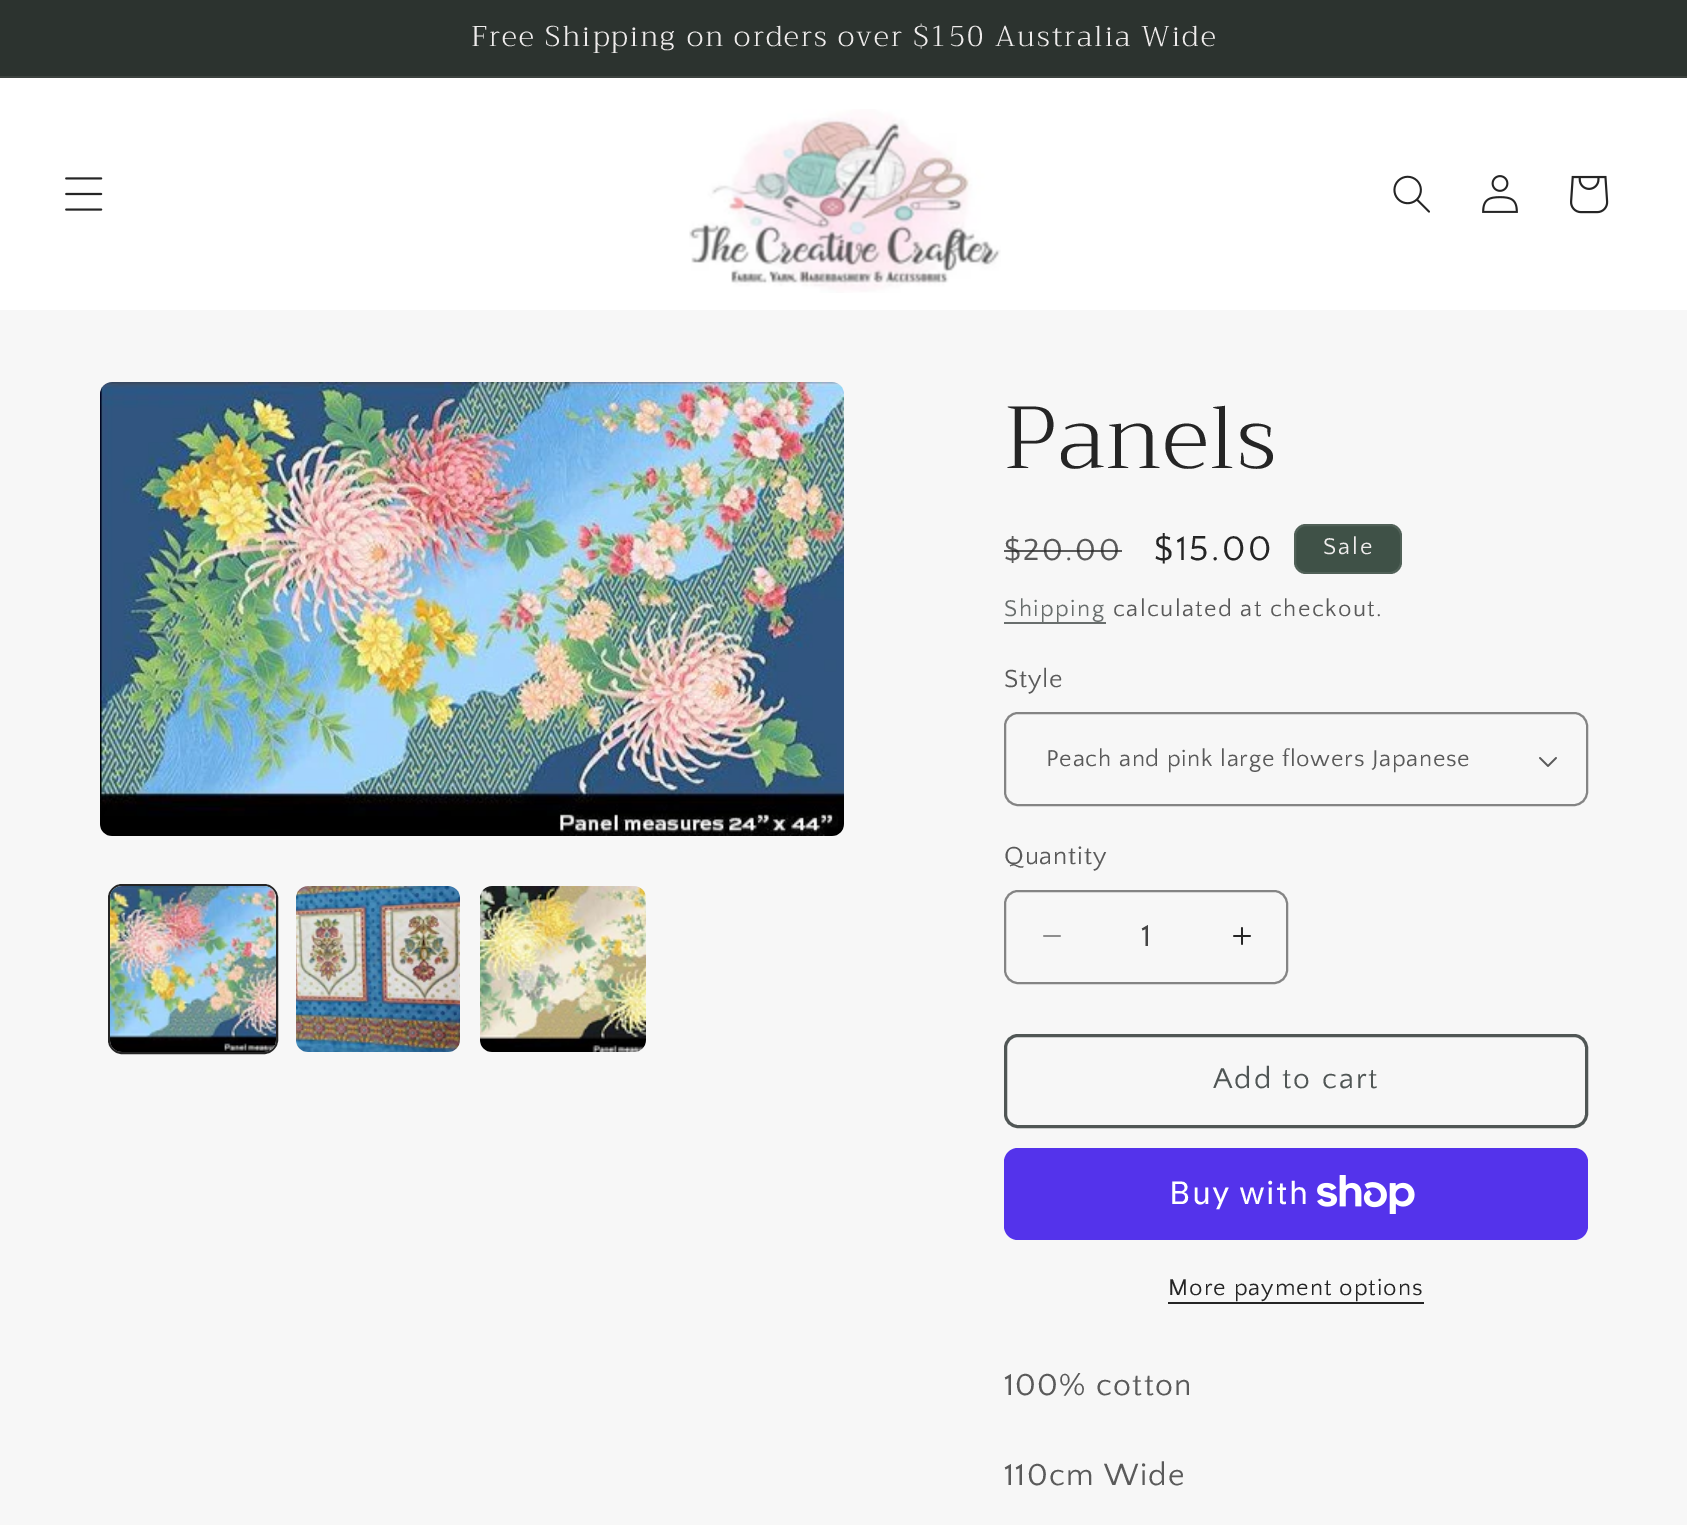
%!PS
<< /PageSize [1687 1525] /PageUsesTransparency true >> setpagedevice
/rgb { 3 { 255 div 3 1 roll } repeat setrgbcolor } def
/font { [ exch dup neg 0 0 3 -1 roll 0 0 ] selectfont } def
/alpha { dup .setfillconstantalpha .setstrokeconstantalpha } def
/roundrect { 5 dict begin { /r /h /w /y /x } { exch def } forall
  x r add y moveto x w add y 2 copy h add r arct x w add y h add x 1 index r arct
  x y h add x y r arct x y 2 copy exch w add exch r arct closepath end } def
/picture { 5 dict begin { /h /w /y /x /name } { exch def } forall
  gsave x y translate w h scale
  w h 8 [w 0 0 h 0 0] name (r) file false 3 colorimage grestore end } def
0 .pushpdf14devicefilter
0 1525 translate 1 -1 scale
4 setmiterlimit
247 247 247 rgb
0 0 1687 1525 rectfill
[
  [0 0 1687 76 44 51 47]
  [0 76 1687 2 60 66 62]
  [0 78 1687 232 255 255 255]
] { aload pop rgb rectfill } forall
(img/1.rgb) 65 177 38 34 picture
(img/2.rgb) 689 109 312 184 picture
(img/3.rgb) 1393 175 37 38 picture
(img/4.rgb) 1482 175 36 38 picture
(img/5.rgb) 1570 175 39 39 picture
(img/6.rgb) 100 382 744 454 picture
37 37 37 rgb
2 setlinewidth
109 885 168 168 13 roundrect stroke
(img/7.rgb) 110 886 166 166 picture
(img/8.rgb) 296 886 164 166 picture
(img/9.rgb) 480 886 166 166 picture
63 81 71 rgb
1294 524 108 50 12 roundrect fill
0.1 alpha
239 236 236 rgb
1295 525 106 48 11 roundrect stroke
1 alpha
105 110 109 rgb
1004 622 102 2 rectfill
(img/10.rgb) 1539 757 18 10 picture
132 132 132 rgb
1005 713 582 92 13 roundrect stroke
(img/11.rgb) 1043 935 18 2 picture
(img/12.rgb) 1233 927 18 18 picture
1005 891 282 92 13 roundrect stroke
80 86 85 rgb
3 setlinewidth
1005.5 1035.5 581 91 12.5 roundrect stroke
84 51 235 rgb
1004 1148 584 92 14 roundrect fill
(img/13.rgb) 1317 1175 98 39 picture
37 37 37 rgb
1168 1302 256 2 rectfill
/Trirong-Light 28.6 font
239 236 236 rgb
471 46 moveto 2 0 (Free Shipping on orders over $150 Australia Wide) ashow
/Trirong-Light 88 font
37 37 37 rgb
1004 468 moveto 1.25 0 (Panels) ashow
/QuattrocentoSans-Regular 32 font
90 90 90 rgb
1004 560 moveto 2.5 0 ($20.00) ashow
0.75 alpha
37 37 37 rgb
1004 550 118 2 rectfill
/QuattrocentoSans-Regular 36 font
1 alpha
1154 560 moveto 2.5 0 ($15.00) ashow
/QuattrocentoSans-Regular 24 font
239 236 236 rgb
1323 554 moveto 2 0 (Sale) ashow
105 110 109 rgb
1004 616 moveto 1.4 0 (Shipping) ashow
90 90 90 rgb
1113 616 moveto 1.4 0 (calculated at checkout.) ashow
/QuattrocentoSans-Regular 26 font
1004 687 moveto 0.8 0 (Style) ashow
/QuattrocentoSans-Regular 24 font
1046 766 moveto 0.8 0 (Peach and pink large flowers Japanese) ashow
/QuattrocentoSans-Regular 26 font
1004 864 moveto 0.8 0 (Quantity) ashow
/QuattrocentoSans-Regular 32 font
69 69 69 rgb
1141 946 moveto (1) show
/QuattrocentoSans-Regular 30 font
80 86 85 rgb
1213 1088 moveto 2 0 (Add to cart) ashow
/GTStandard-Regular 32 font
255 255 255 rgb
1169 1204 moveto 1.25 0 (Buy with) ashow
/QuattrocentoSans-Regular 24 font
37 37 37 rgb
1168 1295 moveto 1 0 (More payment options) ashow
/QuattrocentoSans-Regular 32 font
90 90 90 rgb
1004 1395 moveto 1.25 0 (100% cotton) ashow
1004 1485 moveto 1.25 0 (110cm Wide) ashow
.poppdf14devicefilter showpage
